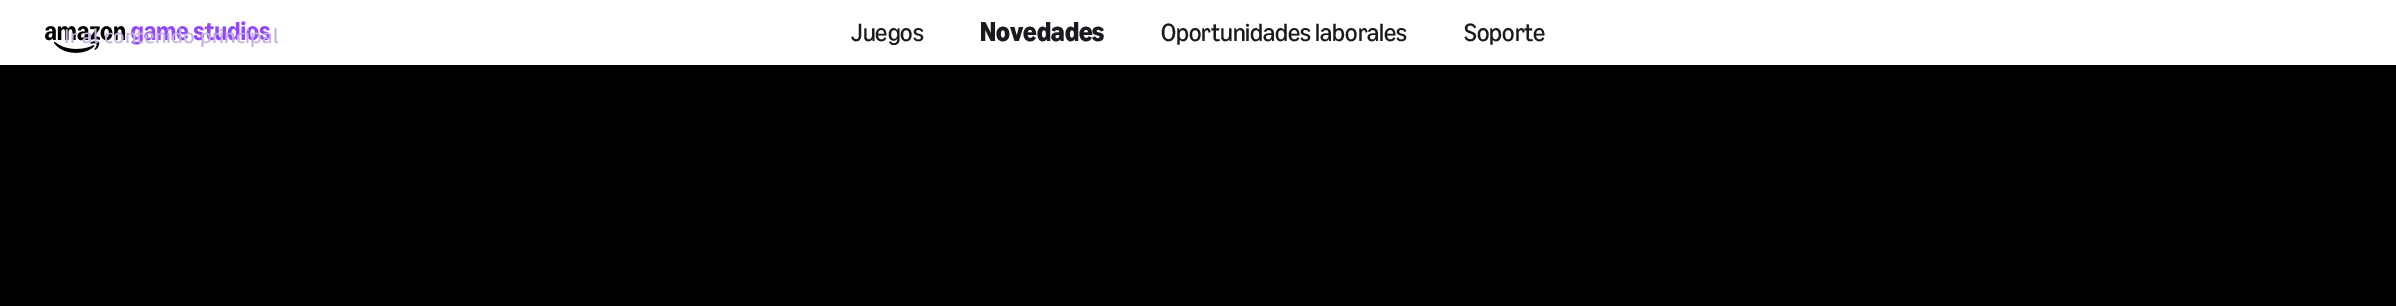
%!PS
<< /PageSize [2396 306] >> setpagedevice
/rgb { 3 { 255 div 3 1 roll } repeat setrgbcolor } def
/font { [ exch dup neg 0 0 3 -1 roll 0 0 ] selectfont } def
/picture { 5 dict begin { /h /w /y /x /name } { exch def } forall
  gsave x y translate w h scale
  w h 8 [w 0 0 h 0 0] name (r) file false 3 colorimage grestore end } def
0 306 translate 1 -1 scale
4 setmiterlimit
0 0 0 rgb
0 0 2396 306 rectfill
255 255 255 rgb
0 0 2396 65 rectfill
(img/1.rgb) 45 21 225 32 picture
/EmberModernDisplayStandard-Regular 25 font
25 27 30 rgb
851 41 moveto (Juegos) show
/EmberModernDisplayStandard-Bold 27.5 font
980 41 moveto (Novedades) show
/EmberModernDisplayStandard-Regular 25 font
1161 41 moveto (Oportunidades laborales) show
1464 41 moveto (Soporte) show
/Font-Regular 20 font
196 175 227 rgb
64 43 moveto (Ir al contenido principal) show
showpage
